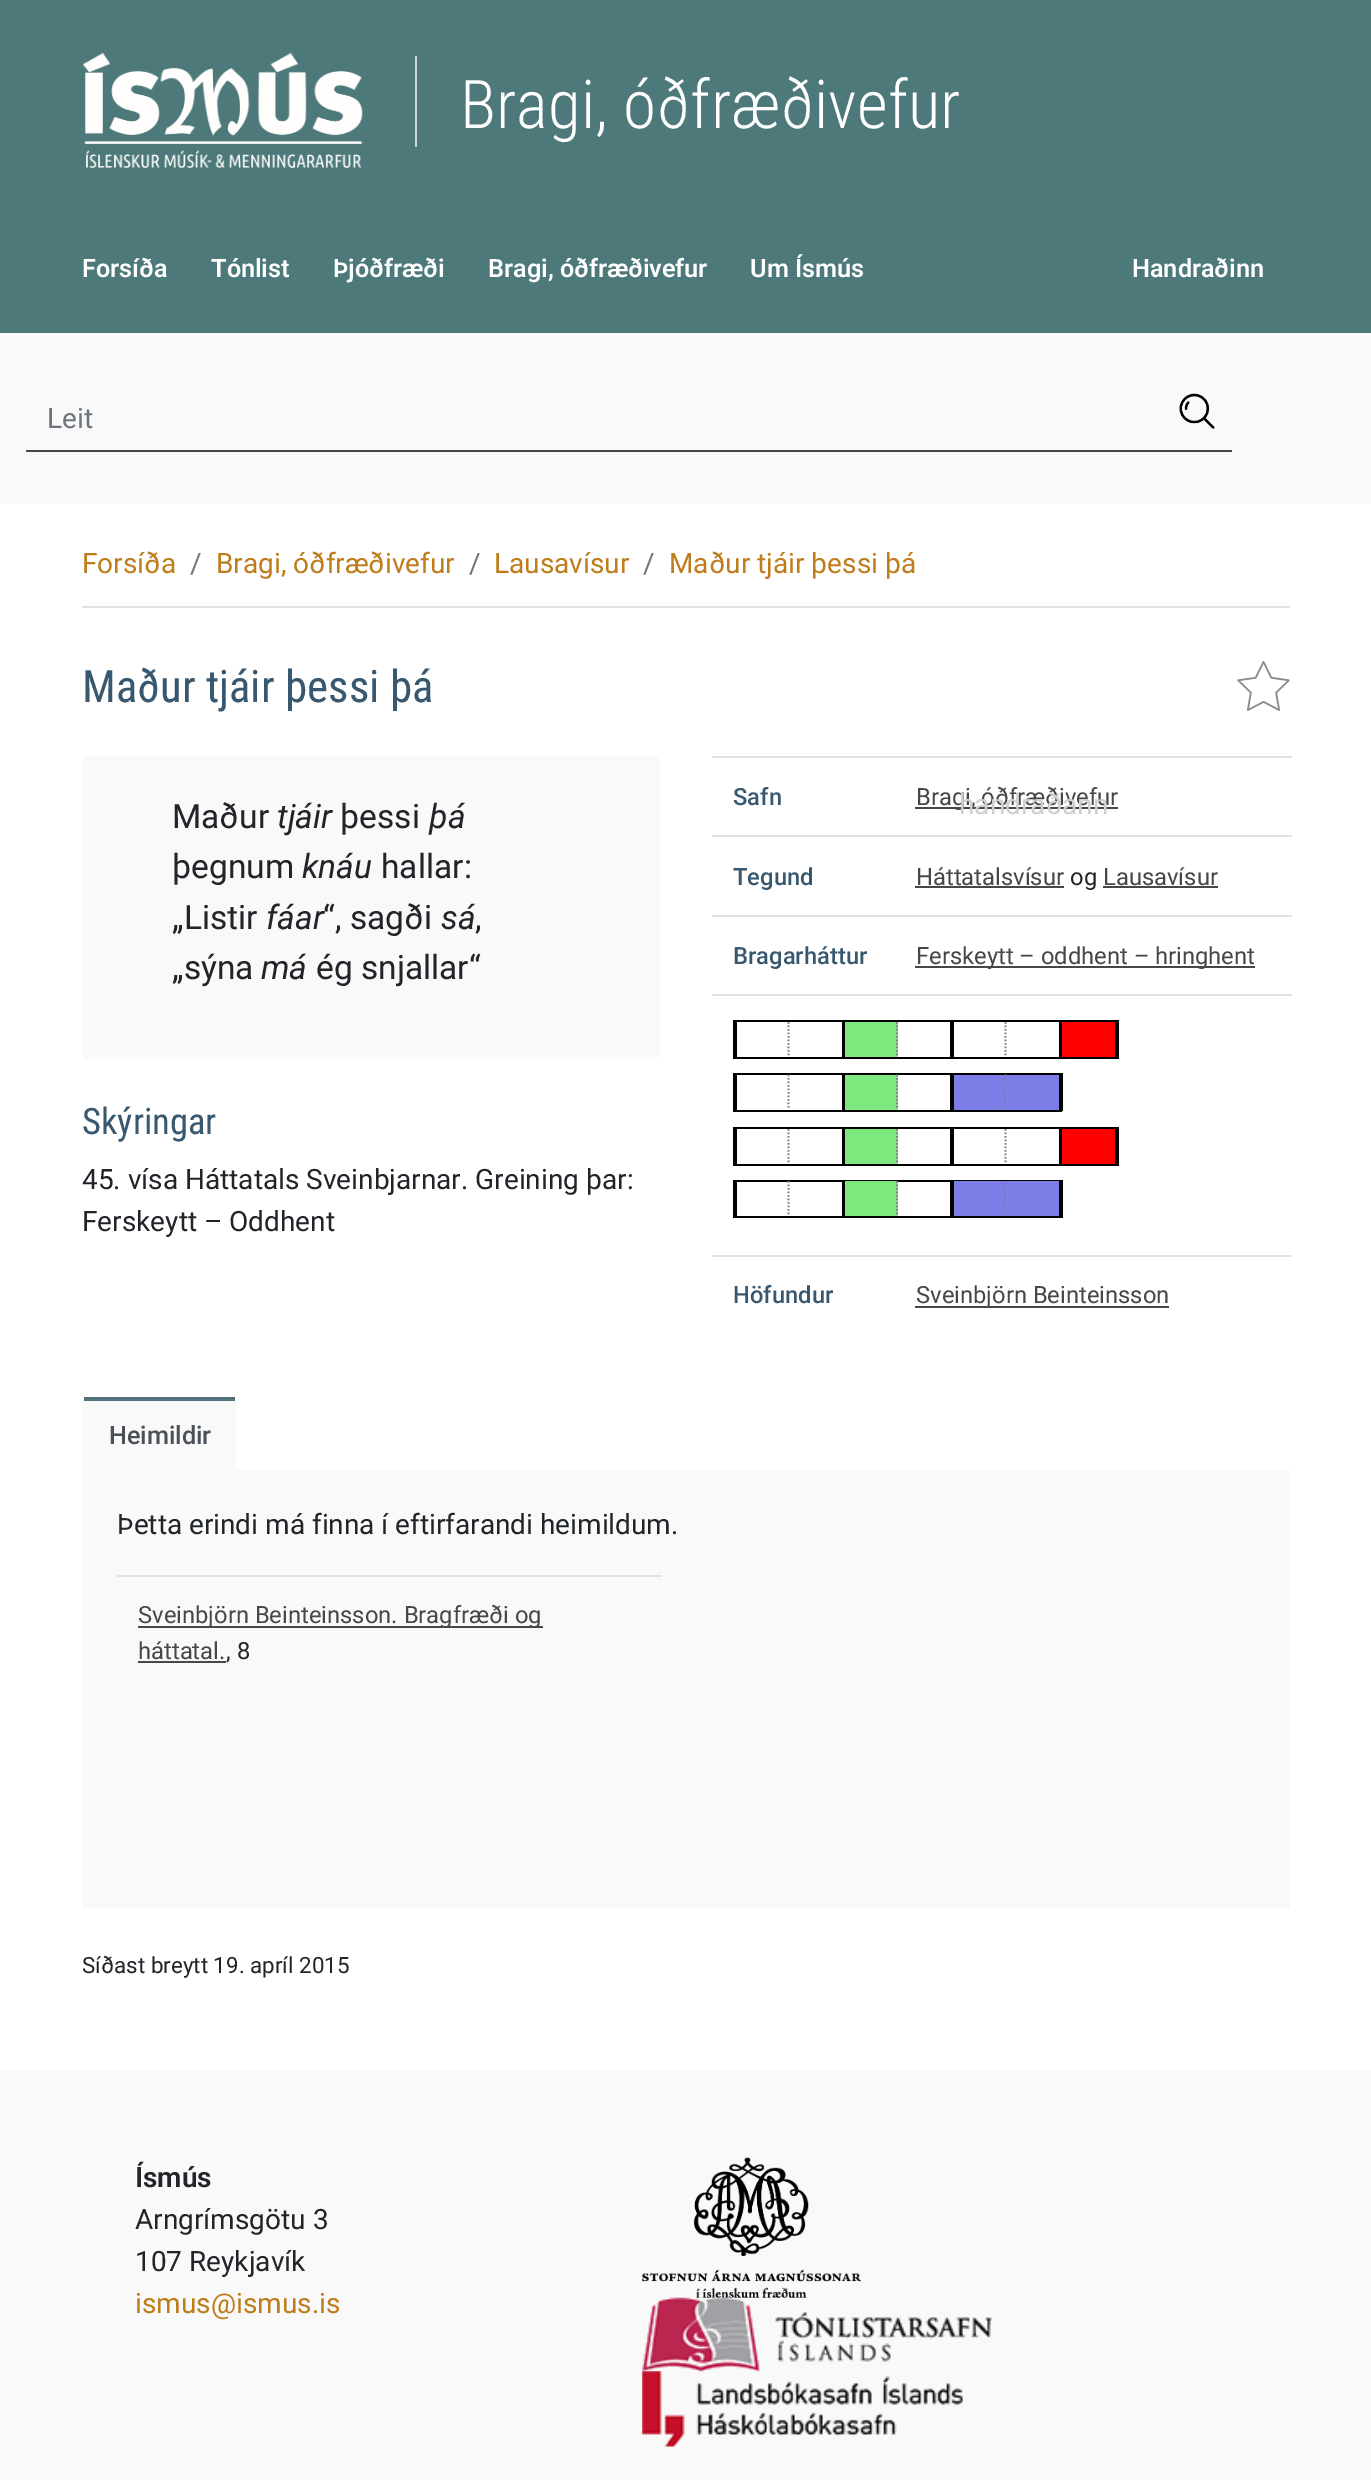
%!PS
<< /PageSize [1371 2480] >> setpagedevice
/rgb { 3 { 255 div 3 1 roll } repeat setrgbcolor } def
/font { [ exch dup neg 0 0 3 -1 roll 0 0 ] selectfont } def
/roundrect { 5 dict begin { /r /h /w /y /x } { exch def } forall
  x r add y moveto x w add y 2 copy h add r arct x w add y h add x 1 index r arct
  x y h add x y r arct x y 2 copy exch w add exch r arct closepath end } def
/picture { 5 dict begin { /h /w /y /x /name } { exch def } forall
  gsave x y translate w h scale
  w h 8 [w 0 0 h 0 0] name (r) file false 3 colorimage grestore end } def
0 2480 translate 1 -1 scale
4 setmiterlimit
255 255 255 rgb
0 0 1371 2480 rectfill
78 121 123 rgb
0 0 1371 333 rectfill
(img/1.rgb) 82 52 281 116 picture
[
  [415 56 2 91 202 215 215]
  [0 333 1371 171 249 249 249]
  [26 450 1206 2 71 71 71]
] { aload pop rgb rectfill } forall
(img/2.rgb) 1179 393 36 36 picture
222 226 230 rgb
82 606 1208 2 rectfill
(img/3.rgb) 1237 661 53 50 picture
249 249 249 rgb
82 756 578 303 7 roundrect fill
[
  [712 756 580 2 222 226 230]
  [915 807 203 2 71 71 71]
  [712 835 580 2 222 226 230]
  [915 886 149 2 71 71 71]
  [1103 886 115 2 71 71 71]
  [712 915 580 2 222 226 230]
  [915 966 340 2 71 71 71]
  [712 994 580 2 222 226 230]
  [733 1020 385 2 0 0 0]
  [733 1057 326 2 0 0 0]
  [733 1020 4 39 0 0 0]
] { aload pop rgb rectfill } forall
128 128 128 rgb
1.8 setlinewidth
[1.75 1.75] 0 setdash
788.5 1022 moveto 788.5 1057 lineto stroke
0 0 0 rgb
842 1020 4 39 rectfill
125 232 125 rgb
845 1022 53 35 rectfill
128 128 128 rgb
897 1022 moveto 897 1057 lineto stroke
0 0 0 rgb
950 1020 4 39 rectfill
128 128 128 rgb
1005.5 1022 moveto 1005.5 1057 lineto stroke
[
  [1115 1020 4 39 0 0 0]
  [1059 1057 59 2 0 0 0]
  [1059 1020 4 39 0 0 0]
  [1062 1022 53 35 255 0 0]
  [733 1073 329 2 0 0 0]
  [733 1110 217 2 0 0 0]
  [733 1073 4 38 0 0 0]
] { aload pop rgb rectfill } forall
128 128 128 rgb
788.5 1074.5 moveto 788.5 1109.5 lineto stroke
0 0 0 rgb
842 1073 4 38 rectfill
125 232 125 rgb
845 1075 53 35 rectfill
128 128 128 rgb
897 1074.5 moveto 897 1109.5 lineto stroke
[
  [1059 1073 4 38 0 0 0]
  [950 1110 112 2 0 0 0]
  [950 1073 4 38 0 0 0]
  [954 1075 52 35 125 125 232]
] { aload pop rgb rectfill } forall
128 128 128 rgb
1005.5 1074.5 moveto 1005.5 1109.5 lineto stroke
[
  [1006 1075 53 35 125 125 232]
  [733 1127 385 2 0 0 0]
  [733 1164 326 2 0 0 0]
  [733 1127 4 39 0 0 0]
] { aload pop rgb rectfill } forall
128 128 128 rgb
788.5 1129 moveto 788.5 1164 lineto stroke
0 0 0 rgb
842 1127 4 39 rectfill
125 232 125 rgb
845 1129 53 35 rectfill
128 128 128 rgb
897 1129 moveto 897 1164 lineto stroke
0 0 0 rgb
950 1127 4 39 rectfill
128 128 128 rgb
1005.5 1129 moveto 1005.5 1164 lineto stroke
[
  [1115 1127 4 39 0 0 0]
  [1059 1164 59 2 0 0 0]
  [1059 1127 4 39 0 0 0]
  [1062 1129 53 35 255 0 0]
  [733 1180 217 2 0 0 0]
  [733 1216 217 2 0 0 0]
  [733 1180 4 38 0 0 0]
] { aload pop rgb rectfill } forall
128 128 128 rgb
788.5 1181 moveto 788.5 1216 lineto stroke
0 0 0 rgb
842 1180 4 38 rectfill
125 232 125 rgb
845 1181 53 35 rectfill
128 128 128 rgb
897 1181 moveto 897 1216 lineto stroke
[
  [950 1180 112 1 0 0 0]
  [1059 1180 4 38 0 0 0]
  [950 1216 112 2 0 0 0]
  [950 1180 4 38 0 0 0]
  [954 1181 52 35 125 125 232]
] { aload pop rgb rectfill } forall
128 128 128 rgb
1005.5 1181 moveto 1005.5 1216 lineto stroke
[
  [1006 1181 53 35 125 125 232]
  [712 1255 580 2 222 226 230]
  [915 1306 254 2 71 71 71]
] { aload pop rgb rectfill } forall
249 249 249 rgb
86 1397 moveto 232 1397 lineto 234 1397 236 1399 236 1401 curveto 236 1474 lineto 82 1474 lineto 82 1401 lineto 82 1399 84 1397 86 1397 curveto closepath fill
[
  [84 1397 151 4 85 112 125]
  [82 1470 1208 438 249 249 249]
  [117 1575 545 2 222 226 230]
  [138 1626 405 2 71 71 71]
  [138 1661 88 2 71 71 71]
  [0 2070 1371 410 249 249 249]
] { aload pop rgb rectfill } forall
(img/4.rgb) 642 2157 219 141 picture
(img/5.rgb) 642 2297 351 75 picture
(img/6.rgb) 642 2371 321 76 picture
/RobotoCondensed-Light 67.25 font
255 255 255 rgb
460 128 moveto (Bragi, óðfræðivefur) show
/Roboto-SemiBold 25.25 font
[
  [(Forsíða) 82 277]
  [(Tónlist) 211 277]
  [(Þjóðfræði) 333 277]
  [(Bragi, óðfræðivefur) 488 277]
  [(Um Ísmús) 750 277]
  [(Handraðinn) 1132 277]
] { aload pop moveto show } forall
/Roboto-Regular 28 font
108 117 125 rgb
47 428 moveto (Leit) show
191 124 26 rgb
82 573 moveto (Forsíða) show
108 117 125 rgb
190 573 moveto (/) show
191 124 26 rgb
216 573 moveto (Bragi, óðfræðivefur) show
108 117 125 rgb
469 573 moveto (/) show
191 124 26 rgb
494 573 moveto (Lausavísur) show
108 117 125 rgb
643 573 moveto (/) show
191 124 26 rgb
669 573 moveto (Maður tjáir þessi þá) show
/RobotoCondensed-Regular 44.75 font
55 88 110 rgb
82 702 moveto (Maður tjáir þessi þá) show
/Roboto-Regular 33.5 font
33 37 41 rgb
172 828 moveto (Maður) show
/Roboto-Italic 33.5 font
277 828 moveto (tjáir) show
/Roboto-Regular 33.5 font
340 828 moveto (þessi) show
/Roboto-Italic 33.5 font
429 828 moveto (þá) show
/Roboto-Regular 33.5 font
172 878 moveto (þegnum) show
/Roboto-Italic 33.5 font
302 878 moveto (knáu) show
/Roboto-Regular 33.5 font
381 878 moveto (hallar:) show
172 929 moveto („Listir) show
/Roboto-Italic 33.5 font
266 929 moveto (fáar) show
/Roboto-Regular 33.5 font
323 929 moveto (“, sagði) show
/Roboto-Italic 33.5 font
441 929 moveto (sá) show
/Roboto-Regular 33.5 font
475 929 moveto (,) show
172 979 moveto („sýna) show
/Roboto-Italic 33.5 font
261 979 moveto (má) show
/Roboto-Regular 33.5 font
316 979 moveto (ég snjallar“) show
/RobotoCondensed-Regular 36.5 font
55 88 110 rgb
82 1134 moveto (Skýringar) show
/Roboto-Regular 28 font
33 37 41 rgb
82 1189 moveto (45. vísa Háttatals Sveinbjarnar. Greining þar:) show
82 1231 moveto (Ferskeytt – Oddhent) show
/Roboto-Medium 23.75 font
55 88 110 rgb
733 805 moveto (Safn) show
/Roboto-Regular 23.75 font
71 71 71 rgb
916 805 moveto (Bragi, óðfræðivefur) show
/Roboto-Regular 28 font
207 207 207 rgb
959 814 moveto (handraðann) show
/Roboto-Medium 23.75 font
55 88 110 rgb
733 885 moveto (Tegund) show
/Roboto-Regular 23.75 font
71 71 71 rgb
916 885 moveto (Háttatalsvísur) show
33 37 41 rgb
1070 885 moveto (og) show
71 71 71 rgb
1103 885 moveto (Lausavísur) show
/Roboto-Medium 23.75 font
55 88 110 rgb
733 964 moveto (Bragarháttur) show
/Roboto-Regular 23.75 font
71 71 71 rgb
916 964 moveto (Ferskeytt – oddhent – hringhent) show
/Roboto-Medium 23.75 font
55 88 110 rgb
733 1303 moveto (Höfundur) show
/Roboto-Regular 23.75 font
71 71 71 rgb
916 1303 moveto (Sveinbjörn Beinteinsson) show
/Roboto-Medium 25.25 font
73 80 87 rgb
109 1444 moveto (Heimildir) show
/Roboto-Regular 28 font
33 37 41 rgb
117 1534 moveto (Þetta erindi má finna í eftirfarandi heimildum.) show
/Roboto-Regular 23.75 font
71 71 71 rgb
138 1623 moveto (Sveinbjörn Beinteinsson. Bragfræði og) show
138 1659 moveto (háttatal.) show
33 37 41 rgb
226 1659 moveto (, 8) show
/Roboto-Regular 22.4 font
82 1973 moveto (Síðast breytt 19. apríl 2015) show
/Roboto-SemiBold 28 font
135 2187 moveto (Ísmús) show
/Roboto-Regular 28 font
135 2229 moveto (Arngrímsgötu 3) show
135 2271 moveto (107 Reykjavík) show
191 124 26 rgb
135 2313 moveto (ismus@ismus.is) show
showpage
